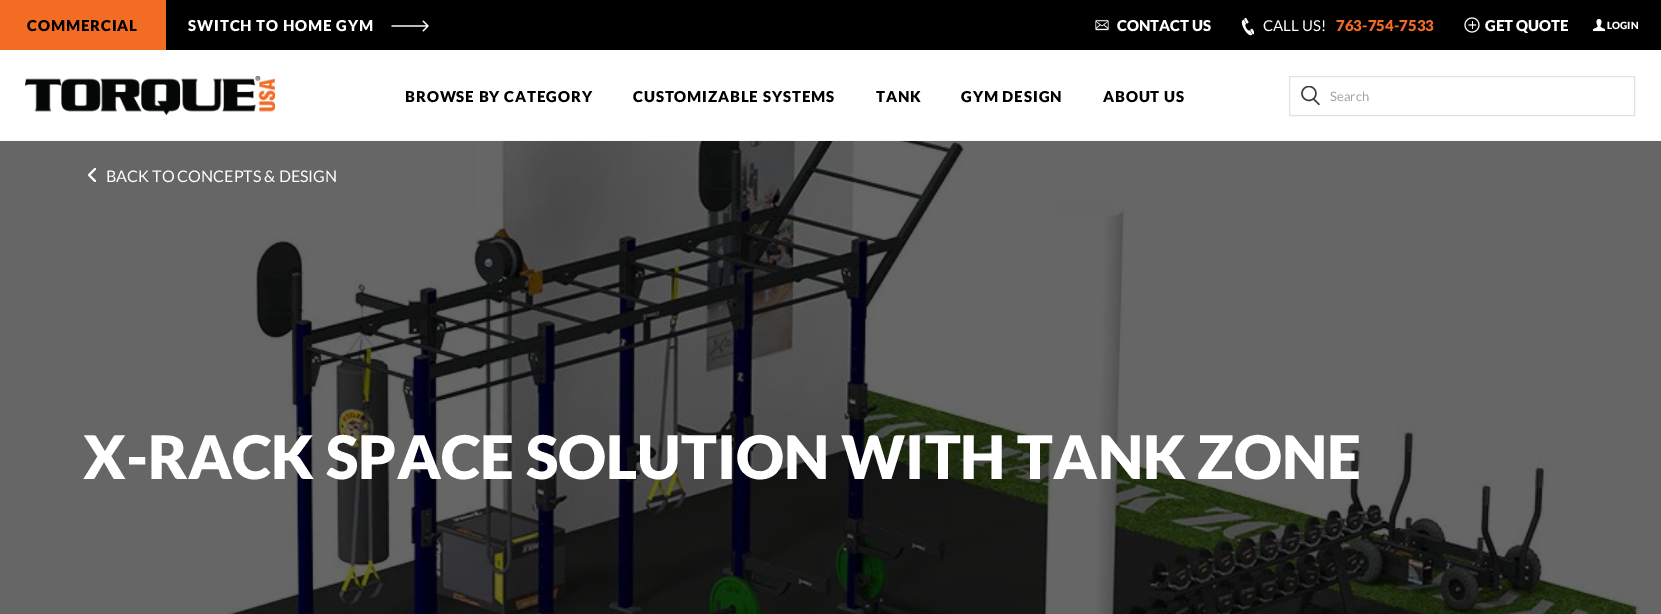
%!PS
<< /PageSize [1661 614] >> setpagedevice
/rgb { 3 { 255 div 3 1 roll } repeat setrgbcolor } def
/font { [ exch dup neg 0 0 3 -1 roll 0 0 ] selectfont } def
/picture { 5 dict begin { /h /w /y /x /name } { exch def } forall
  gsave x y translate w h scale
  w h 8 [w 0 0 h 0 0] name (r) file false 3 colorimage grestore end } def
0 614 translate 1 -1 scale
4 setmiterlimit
255 255 255 rgb
0 0 1661 614 rectfill
[
  [0 141 1661 473 102 102 102]
  [166 0 1495 50 0 0 0]
  [0 0 166 50 243 108 35]
] { aload pop rgb rectfill } forall
(img/1.rgb) 391 20 38 12 picture
(img/2.rgb) 1095 20 14 11 picture
(img/3.rgb) 1241 17 13 19 picture
(img/4.rgb) 1464 17 16 16 picture
(img/5.rgb) 1592 19 14 13 picture
(img/6.rgb) 25 76 250 39 picture
247 247 247 rgb
0 140 1661 1 rectfill
226 226 226 rgb
1289.5 76.5 345 39 rectstroke
(img/7.rgb) 1301 86 19 20 picture
(img/8.rgb) 227 141 1413 473 picture
255 255 255 rgb
2 setlinewidth
1 setlinecap
1 setlinejoin
95 169 moveto 89 175 lineto 95 181 lineto stroke
/Lato-Black 15 font
0 0 0 rgb
27 31 moveto 0.9 0 (COMMERCIAL) ashow
255 255 255 rgb
188 31 moveto 0.9 0 (SWITCH TO HOME GYM) ashow
1117 31 moveto (CONTACT US) show
/Lato-Regular 15 font
1263 31 moveto (CALL US!) show
/Lato-Black 15 font
243 108 35 rgb
1336 31 moveto (763-754-7533) show
255 255 255 rgb
1485 31 moveto (GET QUOTE) show
/Lato-Black 10 font
1607 29 moveto (LOGIN) show
/Lato-Black 15 font
0 0 0 rgb
405 102 moveto 0.9 0 (BROWSE BY CATEGORY) ashow
633 102 moveto 0.9 0 (CUSTOMIZABLE SYSTEMS) ashow
876 102 moveto 0.9 0 (TANK) ashow
961 102 moveto 0.9 0 (GYM DESIGN) ashow
1103 102 moveto 0.9 0 (ABOUT US) ashow
/Lato-Regular 13 font
163 163 163 rgb
1330 101 moveto (Search) show
/Lato-Regular 16 font
255 255 255 rgb
106 182 moveto (BACK TO CONCEPTS & DESIGN) show
/Lato-Black 60 font
83 479 moveto (X-RACK SPACE SOLUTION WITH TANK ZONE) show
showpage
